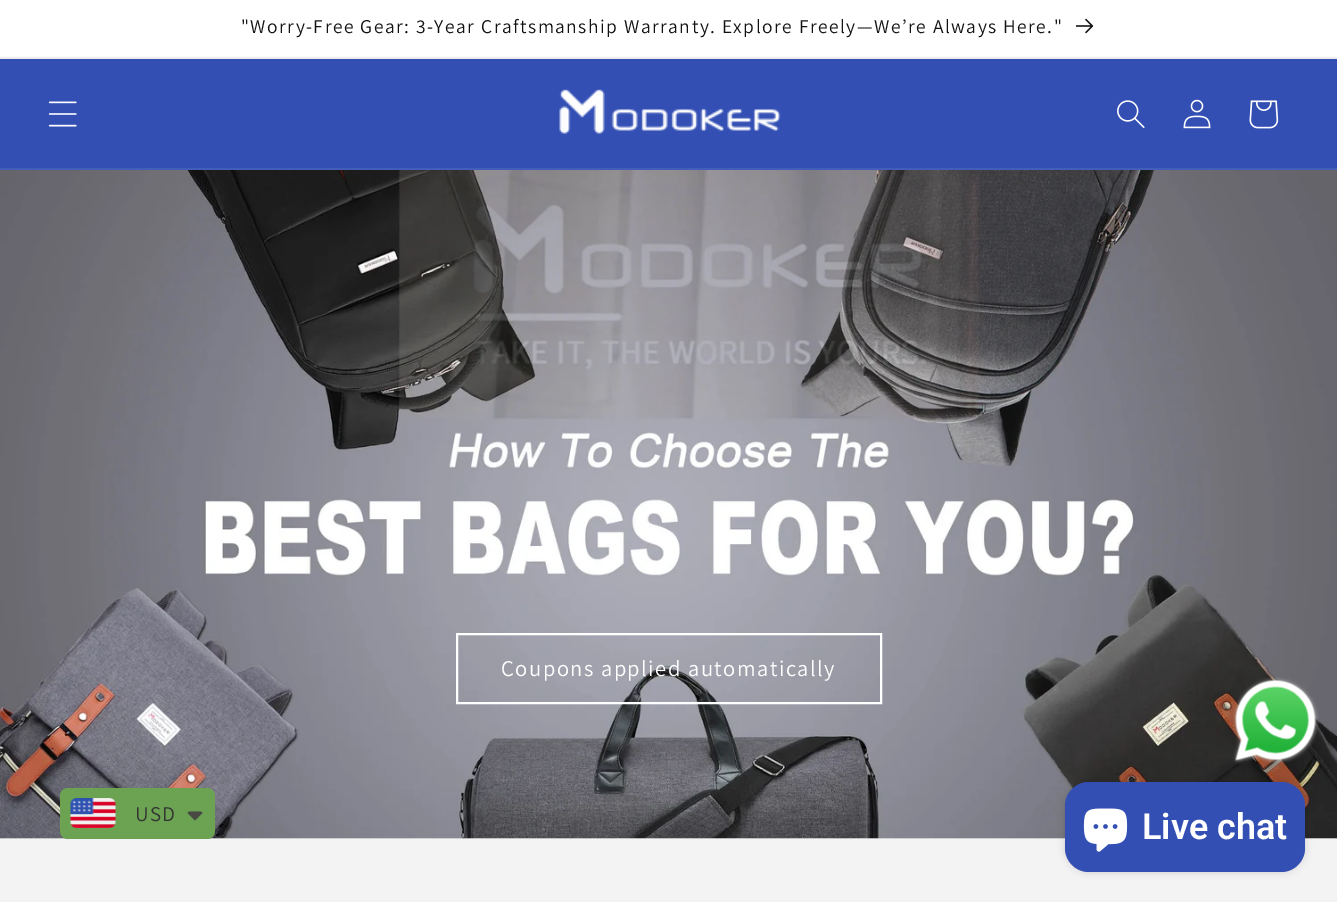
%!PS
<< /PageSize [1337 902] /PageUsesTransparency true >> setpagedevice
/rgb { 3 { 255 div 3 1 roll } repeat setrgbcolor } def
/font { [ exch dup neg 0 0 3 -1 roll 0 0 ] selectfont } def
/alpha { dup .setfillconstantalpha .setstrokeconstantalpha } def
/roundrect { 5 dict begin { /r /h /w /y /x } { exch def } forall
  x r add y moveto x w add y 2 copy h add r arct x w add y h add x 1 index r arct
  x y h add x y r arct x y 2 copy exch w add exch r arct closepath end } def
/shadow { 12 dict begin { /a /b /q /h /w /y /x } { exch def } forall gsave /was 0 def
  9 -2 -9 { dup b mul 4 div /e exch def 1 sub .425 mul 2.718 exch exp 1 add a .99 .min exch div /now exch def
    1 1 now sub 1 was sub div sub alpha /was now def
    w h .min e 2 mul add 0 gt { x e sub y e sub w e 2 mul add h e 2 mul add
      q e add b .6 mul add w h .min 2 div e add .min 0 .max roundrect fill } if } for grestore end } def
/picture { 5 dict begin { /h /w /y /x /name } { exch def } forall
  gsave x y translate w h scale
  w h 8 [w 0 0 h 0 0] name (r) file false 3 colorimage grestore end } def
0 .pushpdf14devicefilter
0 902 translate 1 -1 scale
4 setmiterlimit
255 255 255 rgb
0 0 1337 902 rectfill
236 236 236 rgb
0 57 1337 2 rectfill
(img/1.rgb) 1076 18 18 16 picture
51 79 180 rgb
0 59 1337 109 rectfill
67 93 186 rgb
0 168 1337 2 rectfill
(img/2.rgb) 48 101 29 26 picture
(img/3.rgb) 559 89 222 45 picture
(img/4.rgb) 1117 100 28 28 picture
(img/5.rgb) 1183 99 28 30 picture
(img/6.rgb) 1249 100 30 29 picture
232 232 232 rgb
0 838 1337 1 rectfill
(img/7.rgb) 0 170 1337 669 picture
255 255 255 rgb
2 setlinewidth
457 634 424 69 rectstroke
243 243 243 rgb
0 839 1337 63 rectfill
(img/8.rgb) 1232 677 87 87 picture
107 163 82 rgb
60 788 155 51 8 roundrect fill
(img/9.rgb) 70 798 46 30 picture
71 73 66 rgb
190.5 811.5 moveto 189 811.5 188 812 187.5 813 curveto 195 820.5 lineto 202.5 813 lineto 202 812 201 811.5 199.5 811.5 curveto closepath fill
0 0 0 rgb
1065 782 240 90 24 4 0.15 shadow
51 79 180 rgb
1065 782 240 90 24 roundrect fill
(img/10.rgb) 1083 808 45 44 picture
/Assistant-Regular 19.5 font
18 18 18 rgb
241 33 moveto 1.5 0 ("Worry-Free Gear: 3-Year Craftsmanship Warranty. Explore Freely—We’re Always Here.") ashow
/Assistant-Regular 22.5 font
255 255 255 rgb
501 676 moveto 1.5 0 (Coupons applied automatically) ashow
/Assistant-Regular 21 font
51 51 51 rgb
135 821 moveto 1 0 (USD) ashow
/Roboto-SemiBold 36 font
255 255 255 rgb
1142 839 moveto (Live chat) show
.poppdf14devicefilter showpage
